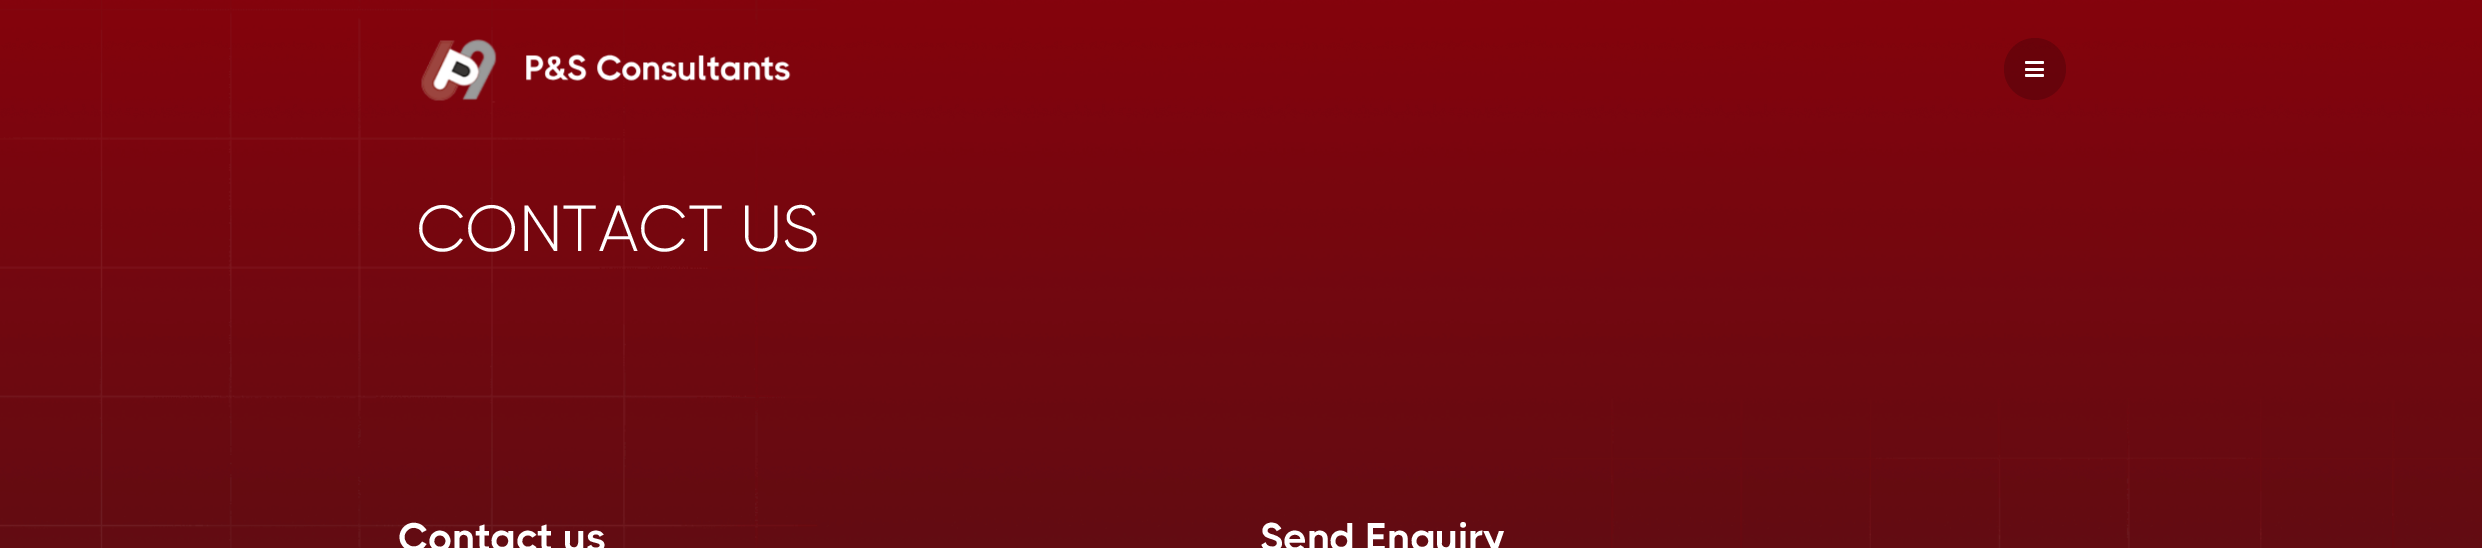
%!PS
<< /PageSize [2482 548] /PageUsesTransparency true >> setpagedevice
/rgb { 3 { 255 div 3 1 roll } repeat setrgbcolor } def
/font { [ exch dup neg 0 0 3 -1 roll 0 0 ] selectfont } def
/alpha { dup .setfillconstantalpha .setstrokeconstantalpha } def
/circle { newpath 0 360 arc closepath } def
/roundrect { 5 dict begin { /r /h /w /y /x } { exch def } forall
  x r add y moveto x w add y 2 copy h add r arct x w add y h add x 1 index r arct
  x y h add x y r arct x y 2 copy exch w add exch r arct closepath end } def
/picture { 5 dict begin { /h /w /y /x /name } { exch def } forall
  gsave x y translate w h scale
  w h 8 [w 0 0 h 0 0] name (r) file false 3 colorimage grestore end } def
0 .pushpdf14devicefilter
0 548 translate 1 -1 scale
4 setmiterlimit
30 30 30 rgb
0 0 2482 548 rectfill
(img/1.rgb) 0 0 2482 548 picture
(img/2.rgb) 421 39 370 64 picture
0.19 alpha
0 0 0 rgb
2035 69 31 circle fill
1 alpha
255 255 255 rgb
2025 61 19 3 1.5 roundrect fill
2025 68 19 3 1.5 roundrect fill
2025 74 19 3 1.5 roundrect fill
/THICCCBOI-Light 65 font
416 251 moveto (CONTACT US) show
/THICCCBOI-Bold 40 font
398 551 moveto (Contact us) show
1260 551 moveto (Send Enquiry) show
.poppdf14devicefilter showpage
